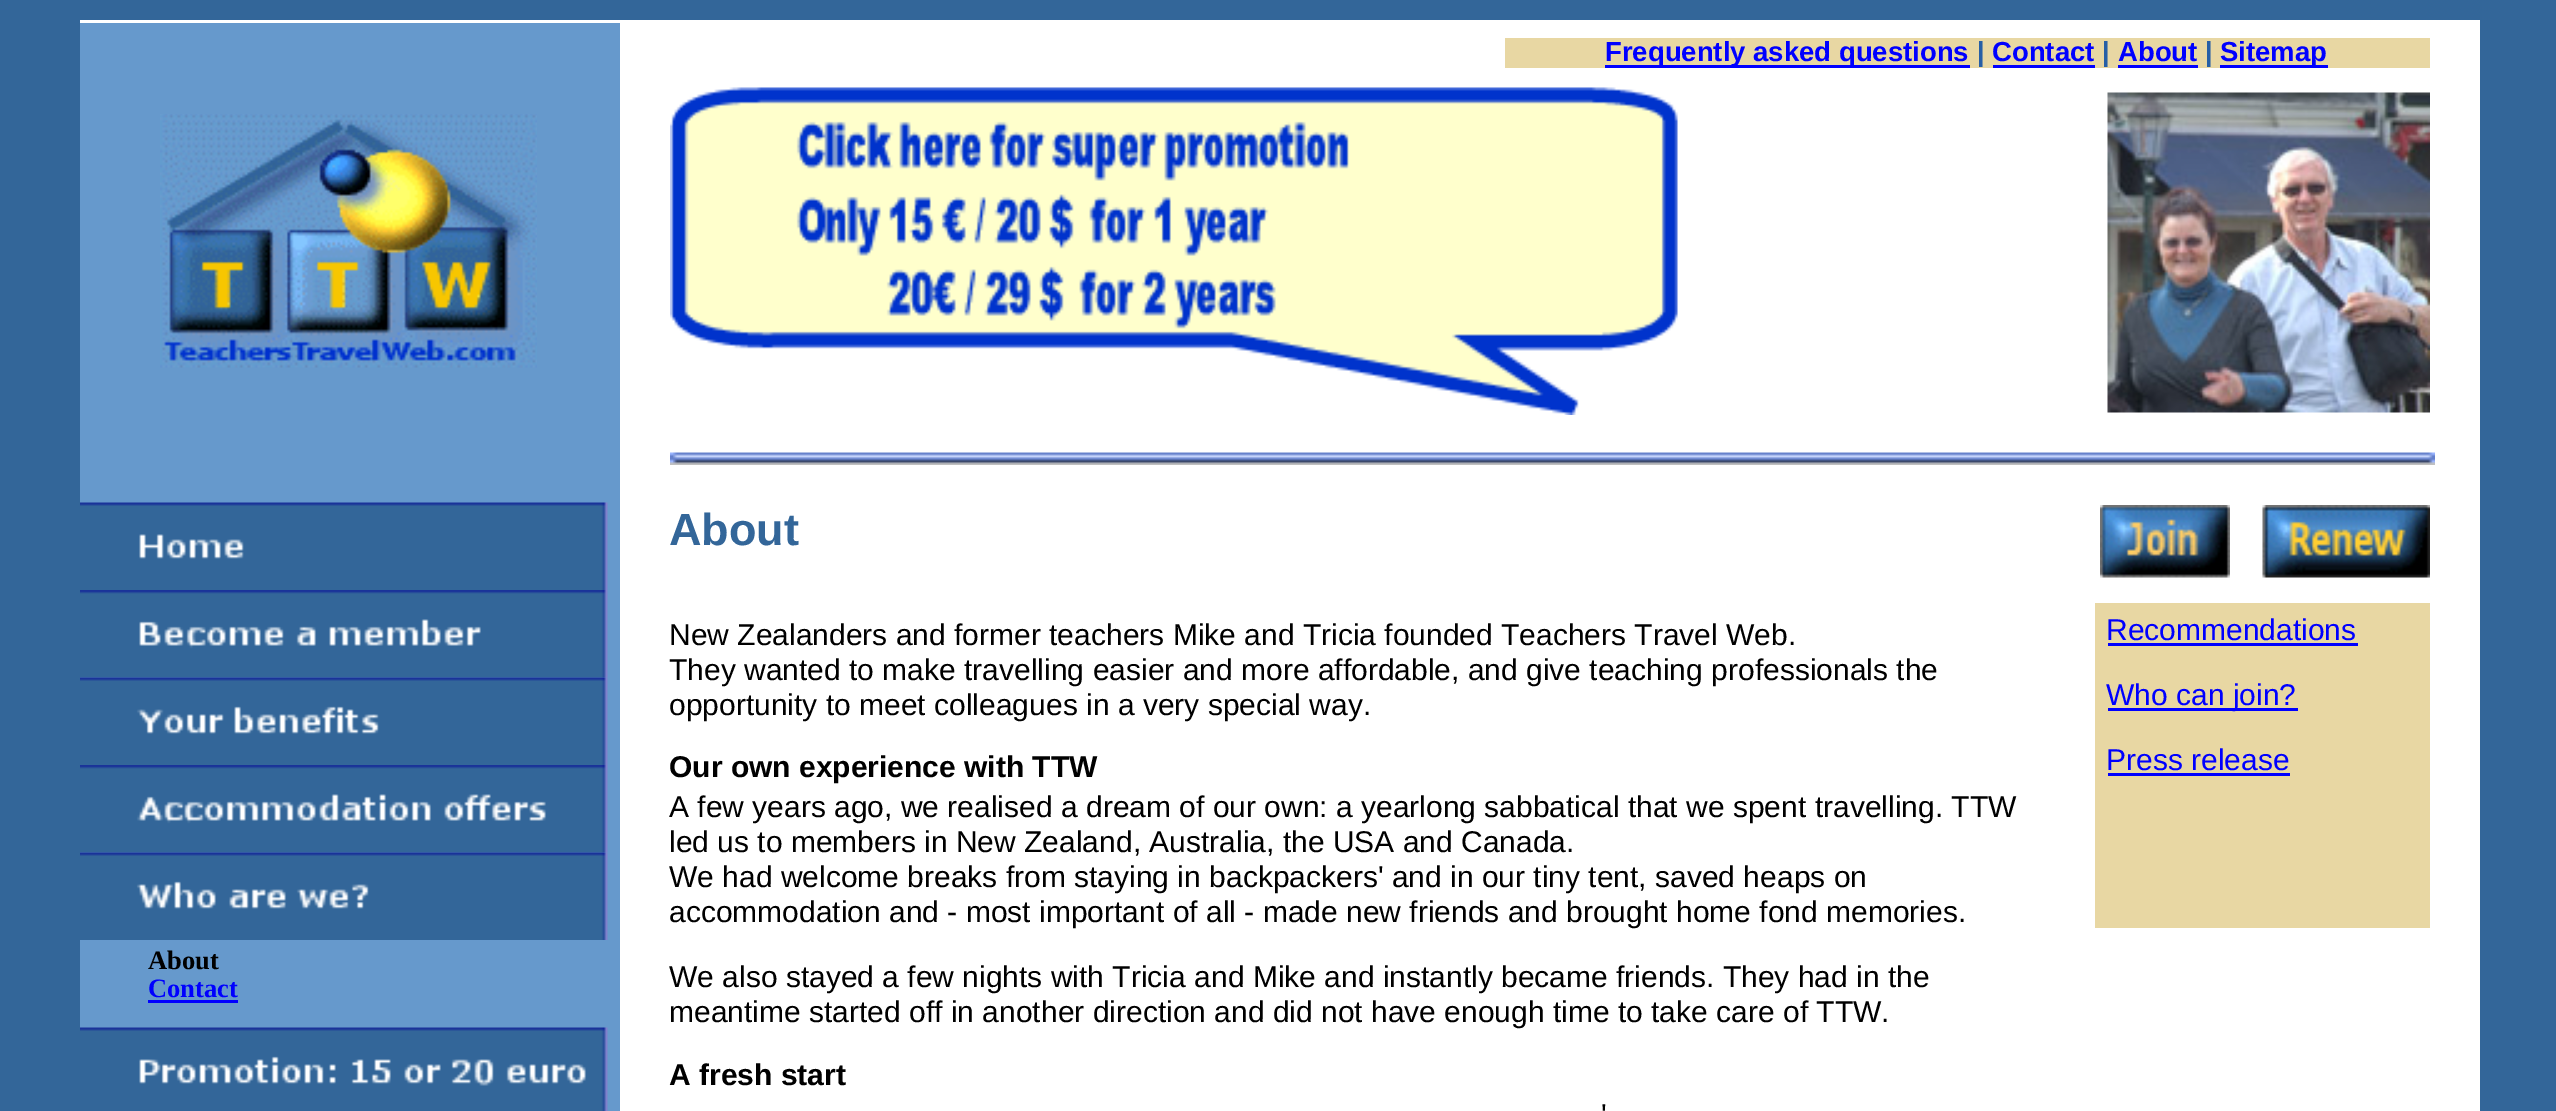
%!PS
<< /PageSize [2556 1111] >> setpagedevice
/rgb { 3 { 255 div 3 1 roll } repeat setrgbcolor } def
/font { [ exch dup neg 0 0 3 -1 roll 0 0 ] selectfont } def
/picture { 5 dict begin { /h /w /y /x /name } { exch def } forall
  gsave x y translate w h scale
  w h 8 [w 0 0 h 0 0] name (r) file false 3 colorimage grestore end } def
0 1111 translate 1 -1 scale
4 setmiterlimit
51 102 153 rgb
0 0 2556 1111 rectfill
255 255 255 rgb
80 20 2400 1091 rectfill
102 153 204 rgb
80 23 540 1088 rectfill
(img/1.rgb) 160 114 377 254 picture
[
  [1505 38 925 30 232 215 163]
  [1605 65 365 3 0 0 255]
  [1993 65 102 3 0 0 255]
  [2118 65 80 3 0 0 255]
  [2220 65 108 3 0 0 255]
] { aload pop rgb rectfill } forall
(img/2.rgb) 670 87 1008 328 picture
(img/3.rgb) 2107 92 323 321 picture
(img/4.rgb) 670 452 1765 13 picture
(img/5.rgb) 2100 505 130 73 picture
(img/6.rgb) 2262 505 168 73 picture
[
  [2095 603 13 325 232 215 163]
  [2108 603 322 315 232 215 163]
  [2108 643 250 3 0 0 255]
  [2108 708 190 3 0 0 255]
  [2108 773 182 3 0 0 255]
  [2108 918 322 10 232 215 163]
] { aload pop rgb rectfill } forall
(img/7.rgb) 80 502 528 88 picture
(img/8.rgb) 80 590 528 88 picture
(img/9.rgb) 80 677 528 88 picture
(img/10.rgb) 80 765 528 88 picture
(img/11.rgb) 80 852 528 88 picture
0 0 255 rgb
148 1000 90 3 rectfill
(img/12.rgb) 80 1027 528 84 picture
/LiberationSans-Bold 27.5 font
1605 61 moveto (Frequently asked questions) show
38 95 166 rgb
1977 61 moveto (|) show
0 0 255 rgb
1992 61 moveto (Contact) show
38 95 166 rgb
2102 61 moveto (|) show
0 0 255 rgb
2118 61 moveto (About) show
38 95 166 rgb
2205 61 moveto (|) show
0 0 255 rgb
2220 61 moveto (Sitemap) show
/LiberationSans-Bold 45 font
51 102 153 rgb
669 545 moveto (About) show
/LiberationSans-Regular 30 font
0 0 0 rgb
[
  [(New Zealanders and former teachers Mike and Tricia founded Teachers Travel Web.) 669 645]
  [(They wanted to make travelling easier and more affordable, and give teaching professionals the) 669 680]
  [(opportunity to meet colleagues in a very special way.) 669 715]
] { aload pop moveto show } forall
/LiberationSans-Bold 30 font
669 777 moveto (Our own experience with TTW) show
/LiberationSans-Regular 30 font
[
  [(A few years ago, we realised a dream of our own: a yearlong sabbatical that we spent travelling. TTW) 669 817]
  [(led us to members in New Zealand, Australia, the USA and Canada.) 669 852]
  [(We had welcome breaks from staying in backpackers' and in our tiny tent, saved heaps on) 669 887]
  [(accommodation and - most important of all - made new friends and brought home fond memories.) 669 922]
  [(We also stayed a few nights with Tricia and Mike and instantly became friends. They had in the) 669 987]
  [(meantime started off in another direction and did not have enough time to take care of TTW.) 669 1022]
] { aload pop moveto show } forall
/LiberationSans-Bold 30 font
669 1085 moveto (A fresh start) show
/LiberationSans-Regular 30 font
1601 1125 moveto (') show
0 0 255 rgb
[
  [(Recommendations) 2106 640]
  [(Who can join?) 2106 705]
  [(Press release) 2106 770]
] { aload pop moveto show } forall
/LiberationSerif-Bold 26.5 font
0 0 0 rgb
148 969 moveto (About) show
0 0 255 rgb
148 997 moveto (Contact) show
showpage
